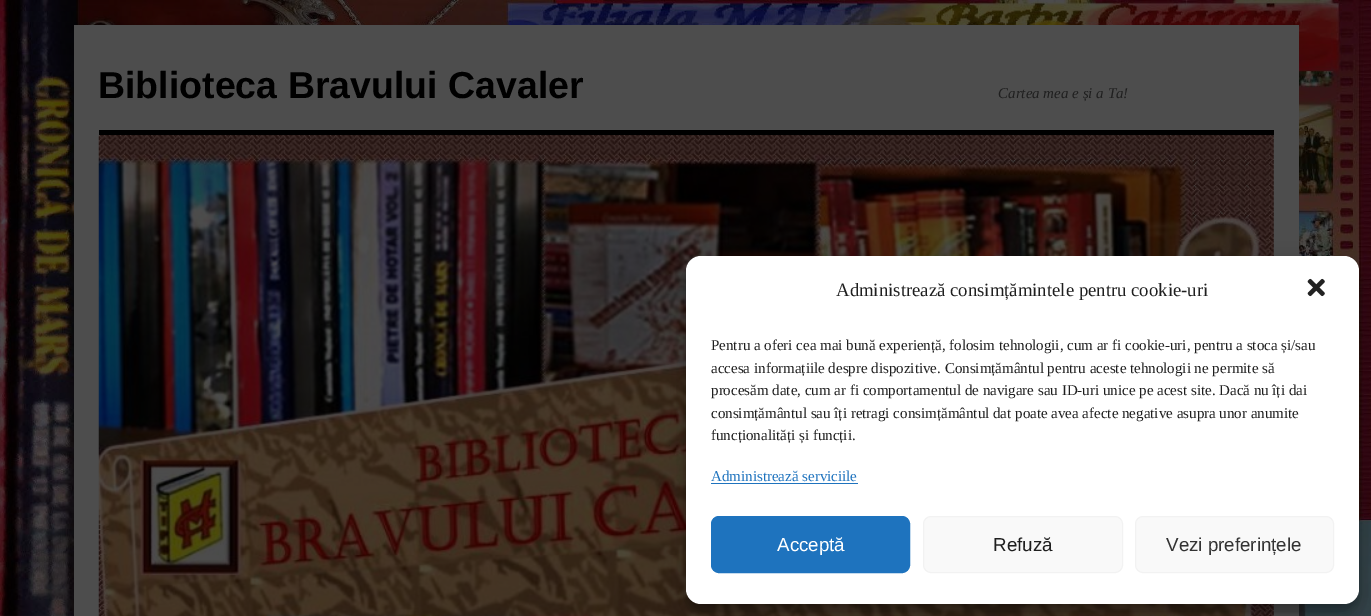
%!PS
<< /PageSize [1371 616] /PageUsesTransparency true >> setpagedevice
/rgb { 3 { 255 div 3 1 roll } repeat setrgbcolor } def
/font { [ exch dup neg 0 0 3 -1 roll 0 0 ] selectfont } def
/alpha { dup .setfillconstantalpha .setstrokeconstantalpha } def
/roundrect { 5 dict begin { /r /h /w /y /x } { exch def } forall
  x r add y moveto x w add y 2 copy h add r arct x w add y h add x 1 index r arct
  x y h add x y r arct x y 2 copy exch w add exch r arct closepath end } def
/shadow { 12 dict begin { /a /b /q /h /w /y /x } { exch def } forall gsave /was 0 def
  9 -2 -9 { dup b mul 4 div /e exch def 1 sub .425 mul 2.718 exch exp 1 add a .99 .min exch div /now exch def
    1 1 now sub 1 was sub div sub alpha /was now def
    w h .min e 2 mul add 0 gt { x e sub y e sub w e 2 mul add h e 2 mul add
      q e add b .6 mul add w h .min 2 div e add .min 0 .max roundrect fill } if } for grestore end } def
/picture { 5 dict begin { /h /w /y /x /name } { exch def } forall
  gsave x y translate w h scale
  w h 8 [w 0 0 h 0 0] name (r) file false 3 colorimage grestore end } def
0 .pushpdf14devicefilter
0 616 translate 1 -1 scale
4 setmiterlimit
255 255 255 rgb
0 0 1371 616 rectfill
(img/1.rgb) 0 0 1371 616 picture
77 77 77 rgb
74 25 1225 591 rectfill
0 0 0 rgb
99 130 1175 5 rectfill
(img/2.rgb) 98 135 1176 481 picture
686 264 673 347 15 4 0.23 shadow
686 269 673 347 15 12.5 0.19 shadow
255 255 255 rgb
686 256 673 348 15 roundrect fill
(img/3.rgb) 1307 278 18 19 picture
30 115 190 rgb
711 483 147 1 rectfill
711.5 516.5 198 56 7.5 roundrect gsave fill grestore
stroke
249 249 249 rgb
923.5 516.5 199 56 7.5 roundrect gsave fill grestore
242 242 242 rgb
stroke
249 249 249 rgb
1135.5 516.5 198 56 7.5 roundrect gsave fill grestore
242 242 242 rgb
stroke
/LiberationSans-Bold 37.5 font
0 0 0 rgb
98 98 moveto (Biblioteca Bravului Cavaler) show
/LiberationSerif-Italic 15 font
31 31 31 rgb
998 98 moveto (Cartea mea e și a Ta!) show
/LiberationSerif-Regular 18.75 font
836 296 moveto (Administrează consimțămintele pentru cookie-uri) show
/LiberationSerif-Regular 15 font
[
  [(Pentru a oferi cea mai bună experiență, folosim tehnologii, cum ar fi cookie-uri, pentru a stoca și/sau) 711 350]
  [(accesa informațiile despre dispozitive. Consimțământul pentru aceste tehnologii ne permite să) 711 373]
  [(procesăm date, cum ar fi comportamentul de navigare sau ID-uri unice pe acest site. Dacă nu îți dai) 711 395]
  [(consimțământul sau îți retragi consimțământul dat poate avea afecte negative asupra unor anumite) 711 418]
  [(funcționalități și funcții.) 711 440]
] { aload pop moveto show } forall
30 115 190 rgb
711 481 moveto (Administrează serviciile) show
/LiberationSans-Regular 18.75 font
255 255 255 rgb
777 551 moveto (Acceptă) show
31 31 31 rgb
993 551 moveto (Refuză) show
51 51 51 rgb
1166 551 moveto (Vezi preferințele) show
.poppdf14devicefilter showpage
